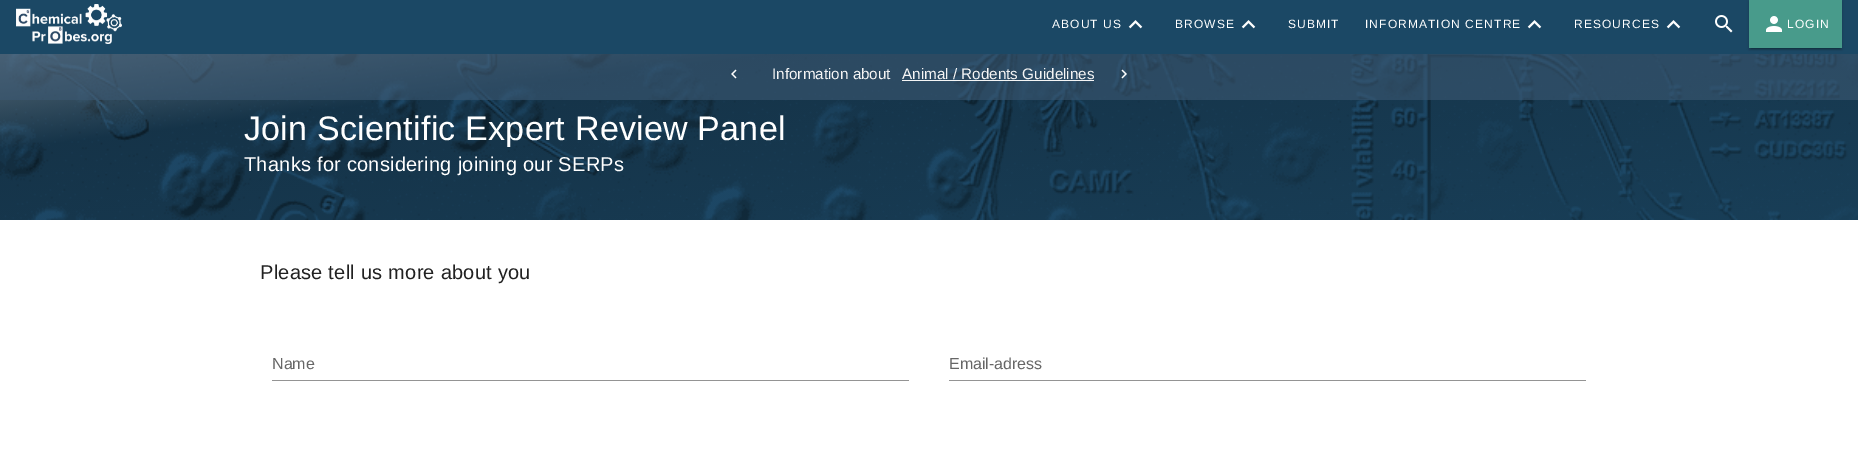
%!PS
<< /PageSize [1858 466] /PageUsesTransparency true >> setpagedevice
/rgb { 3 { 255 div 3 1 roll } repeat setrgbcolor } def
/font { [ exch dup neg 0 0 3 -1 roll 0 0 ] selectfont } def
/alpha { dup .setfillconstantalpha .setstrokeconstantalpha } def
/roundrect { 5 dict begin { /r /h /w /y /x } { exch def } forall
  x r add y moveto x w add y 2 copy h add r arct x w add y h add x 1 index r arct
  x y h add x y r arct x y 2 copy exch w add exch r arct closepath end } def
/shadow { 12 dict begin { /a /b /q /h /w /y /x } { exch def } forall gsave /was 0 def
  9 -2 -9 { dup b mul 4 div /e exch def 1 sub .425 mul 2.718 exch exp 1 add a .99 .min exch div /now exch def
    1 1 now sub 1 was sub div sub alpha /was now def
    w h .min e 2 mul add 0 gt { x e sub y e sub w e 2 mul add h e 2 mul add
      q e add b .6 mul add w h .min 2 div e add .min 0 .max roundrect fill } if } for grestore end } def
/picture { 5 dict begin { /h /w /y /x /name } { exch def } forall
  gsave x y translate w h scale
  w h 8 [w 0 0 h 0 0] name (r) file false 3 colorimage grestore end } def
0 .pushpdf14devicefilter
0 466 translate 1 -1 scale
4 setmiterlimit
255 255 255 rgb
0 0 1858 466 rectfill
27 72 101 rgb
0 0 1858 54 rectfill
(img/1.rgb) 16 4 106 40 picture
(img/2.rgb) 1128 20 15 9 picture
(img/2.rgb) 1241 20 15 9 picture
(img/2.rgb) 1527 20 15 9 picture
(img/2.rgb) 1666 20 15 9 picture
(img/3.rgb) 1715 15 18 18 picture
(img/7.rgb) 0 54 1858 166 picture
0.6 alpha
59 88 114 rgb
0 54 1858 46 rectfill
1 alpha
0 0 0 rgb
1749 1 93 48 0 2.5 0.12 shadow
1749 2 93 48 0 1 0.14 shadow
1751 5 89 44 0 0.5 0.2 shadow
72 155 139 rgb
1749 0 93 48 rectfill
(img/4.rgb) 1766 16 16 16 picture
(img/5.rgb) 731 69 6 10 picture
245 245 245 rgb
902 80 192 1 rectfill
(img/6.rgb) 1121 69 6 10 picture
148 148 148 rgb
272 380 637 1 rectfill
949 380 637 1 rectfill
/LiberationSans-Regular 12 font
255 255 255 rgb
1052 28 moveto 1.1 0 (ABOUT US) ashow
1175 28 moveto 1.1 0 (BROWSE) ashow
1288 28 moveto 1.1 0 (SUBMIT) ashow
1365 28 moveto 1.1 0 (INFORMATION CENTRE) ashow
1574 28 moveto 1.1 0 (RESOURCES) ashow
1787 28 moveto 1.1 0 (LOGIN) ashow
/LiberationSans-Regular 15.25 font
245 245 245 rgb
772 79 moveto (Information about) show
902 79 moveto (Animal / Rodents Guidelines) show
/LiberationSans-Regular 34 font
255 255 255 rgb
244 140 moveto 0.25 0 (Join Scientific Expert Review Panel) ashow
/LiberationSans-Regular 20 font
244 171 moveto 0.25 0 (Thanks for considering joining our SERPs) ashow
33 33 33 rgb
260 279 moveto 0.25 0 (Please tell us more about you) ashow
/LiberationSans-Regular 16 font
102 102 102 rgb
272 369 moveto (Name) show
949 369 moveto (Email-adress) show
.poppdf14devicefilter showpage
